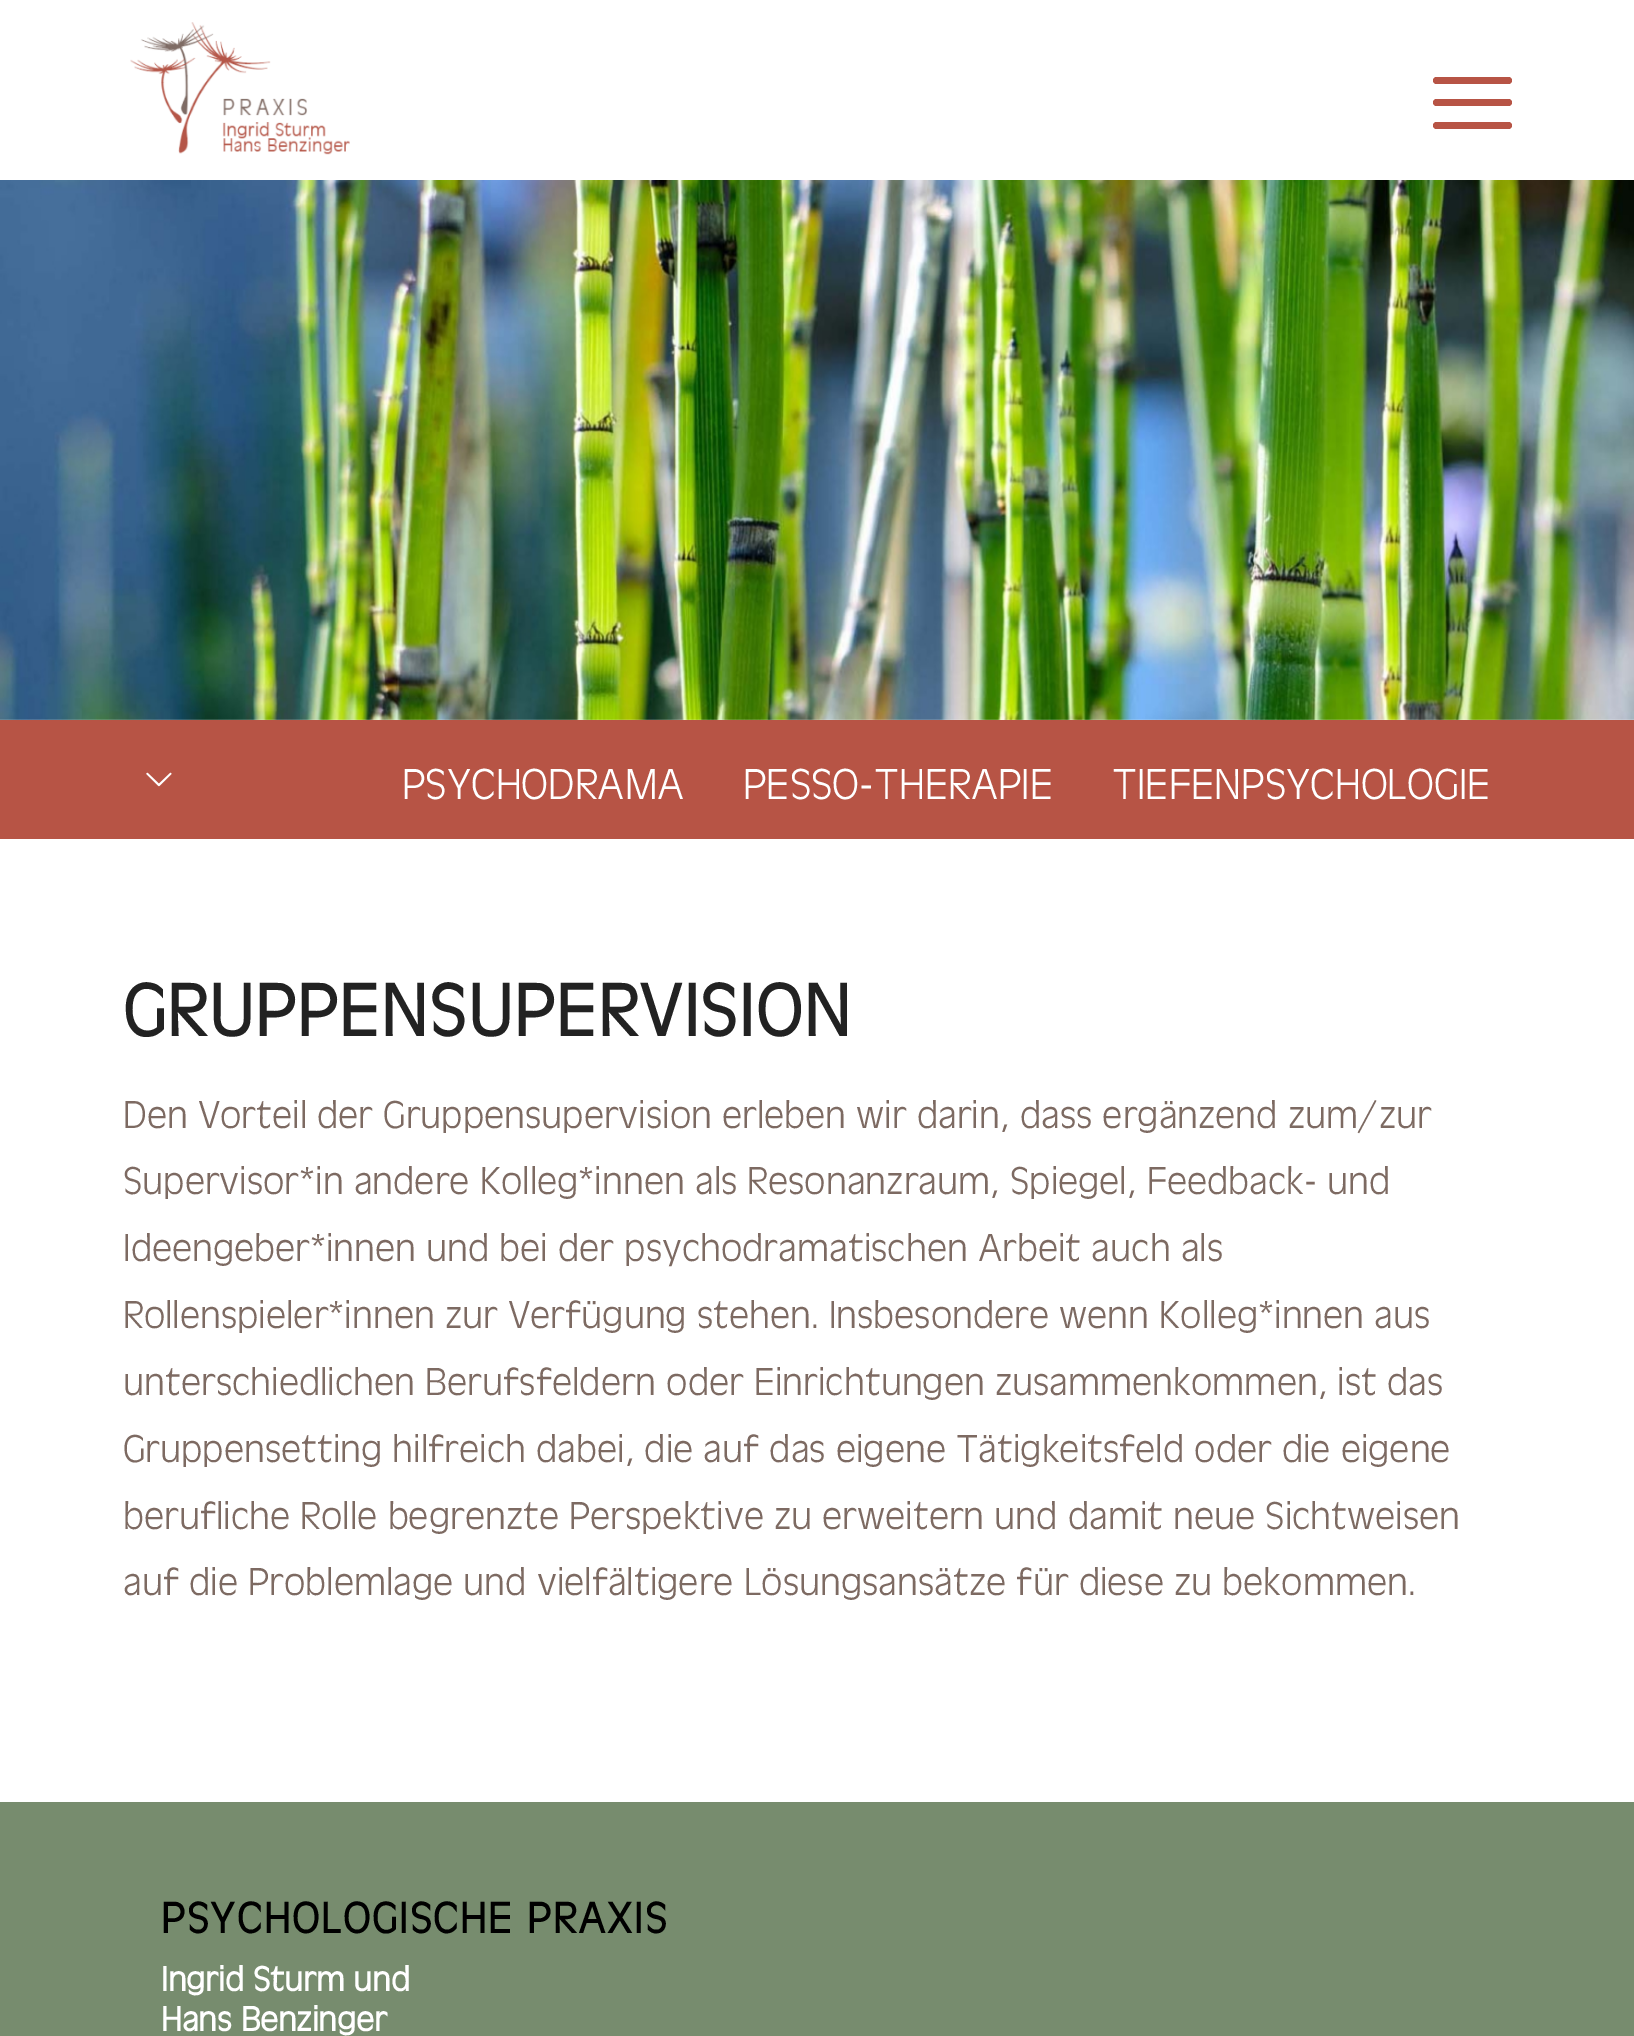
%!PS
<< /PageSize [1634 2036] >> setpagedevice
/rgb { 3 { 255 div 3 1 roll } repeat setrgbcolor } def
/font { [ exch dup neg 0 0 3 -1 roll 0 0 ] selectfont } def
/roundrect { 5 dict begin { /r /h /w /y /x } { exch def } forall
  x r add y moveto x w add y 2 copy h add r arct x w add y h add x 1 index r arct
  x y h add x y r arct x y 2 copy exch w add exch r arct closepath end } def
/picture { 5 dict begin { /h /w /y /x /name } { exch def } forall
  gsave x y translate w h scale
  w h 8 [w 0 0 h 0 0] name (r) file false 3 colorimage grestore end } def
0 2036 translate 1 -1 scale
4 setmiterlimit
255 255 255 rgb
0 0 1634 2036 rectfill
(img/1.rgb) 130 22 220 133 picture
183 84 69 rgb
1433 99 79 7 3.5 roundrect fill
1433 77 79 7 3.5 roundrect fill
1433 122 79 7 3.5 roundrect fill
(img/2.rgb) 0 180 1634 540 picture
0 720 1634 119 rectfill
(img/3.rgb) 146 772 26 15 picture
119 140 110 rgb
0 1802 1634 234 rectfill
/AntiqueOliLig-Regular 45 font
255 255 255 rgb
[
  [(PSYCHODRAMA) 402 799]
  [(PESSO-THERAPIE) 743 799]
  [(TIEFENPSYCHOLOGIE) 1112 799]
] { aload pop moveto show } forall
/AntiqueOliLig-Bold 76.5 font
34 34 34 rgb
123 1036 moveto 2.25 0 (GRUPPENSUPERVISION) ashow
/AntiqueOliLig-Regular 40.5 font
125 106 98 rgb
[
  [(Den Vorteil der Gruppensupervision erleben wir darin, dass ergänzend zum/zur) 123 1128]
  [(Supervisor*in andere Kolleg*innen als Resonanzraum, Spiegel, Feedback- und) 123 1194]
  [(Ideengeber*innen und bei der psychodramatischen Arbeit auch als) 123 1261]
  [(Rollenspieler*innen zur Verfügung stehen. Insbesondere wenn Kolleg*innen aus) 123 1328]
  [(unterschiedlichen Berufsfeldern oder Einrichtungen zusammenkommen, ist das) 123 1395]
  [(Gruppensetting hilfreich dabei, die auf das eigene Tätigkeitsfeld oder die eigene) 123 1462]
  [(berufliche Rolle begrenzte Perspektive zu erweitern und damit neue Sichtweisen) 123 1529]
  [(auf die Problemlage und vielfältigere Lösungsansätze für diese zu bekommen.) 123 1595]
] { aload pop moveto show } forall
/AntiqueOliLig-Bold 45 font
0 0 0 rgb
161 1933 moveto 2.25 0 (PSYCHOLOGISCHE PRAXIS) ashow
/AntiqueOliLig-Bold 36 font
255 255 255 rgb
161 1991 moveto (Ingrid Sturm und) show
161 2031 moveto (Hans Benzinger) show
showpage
